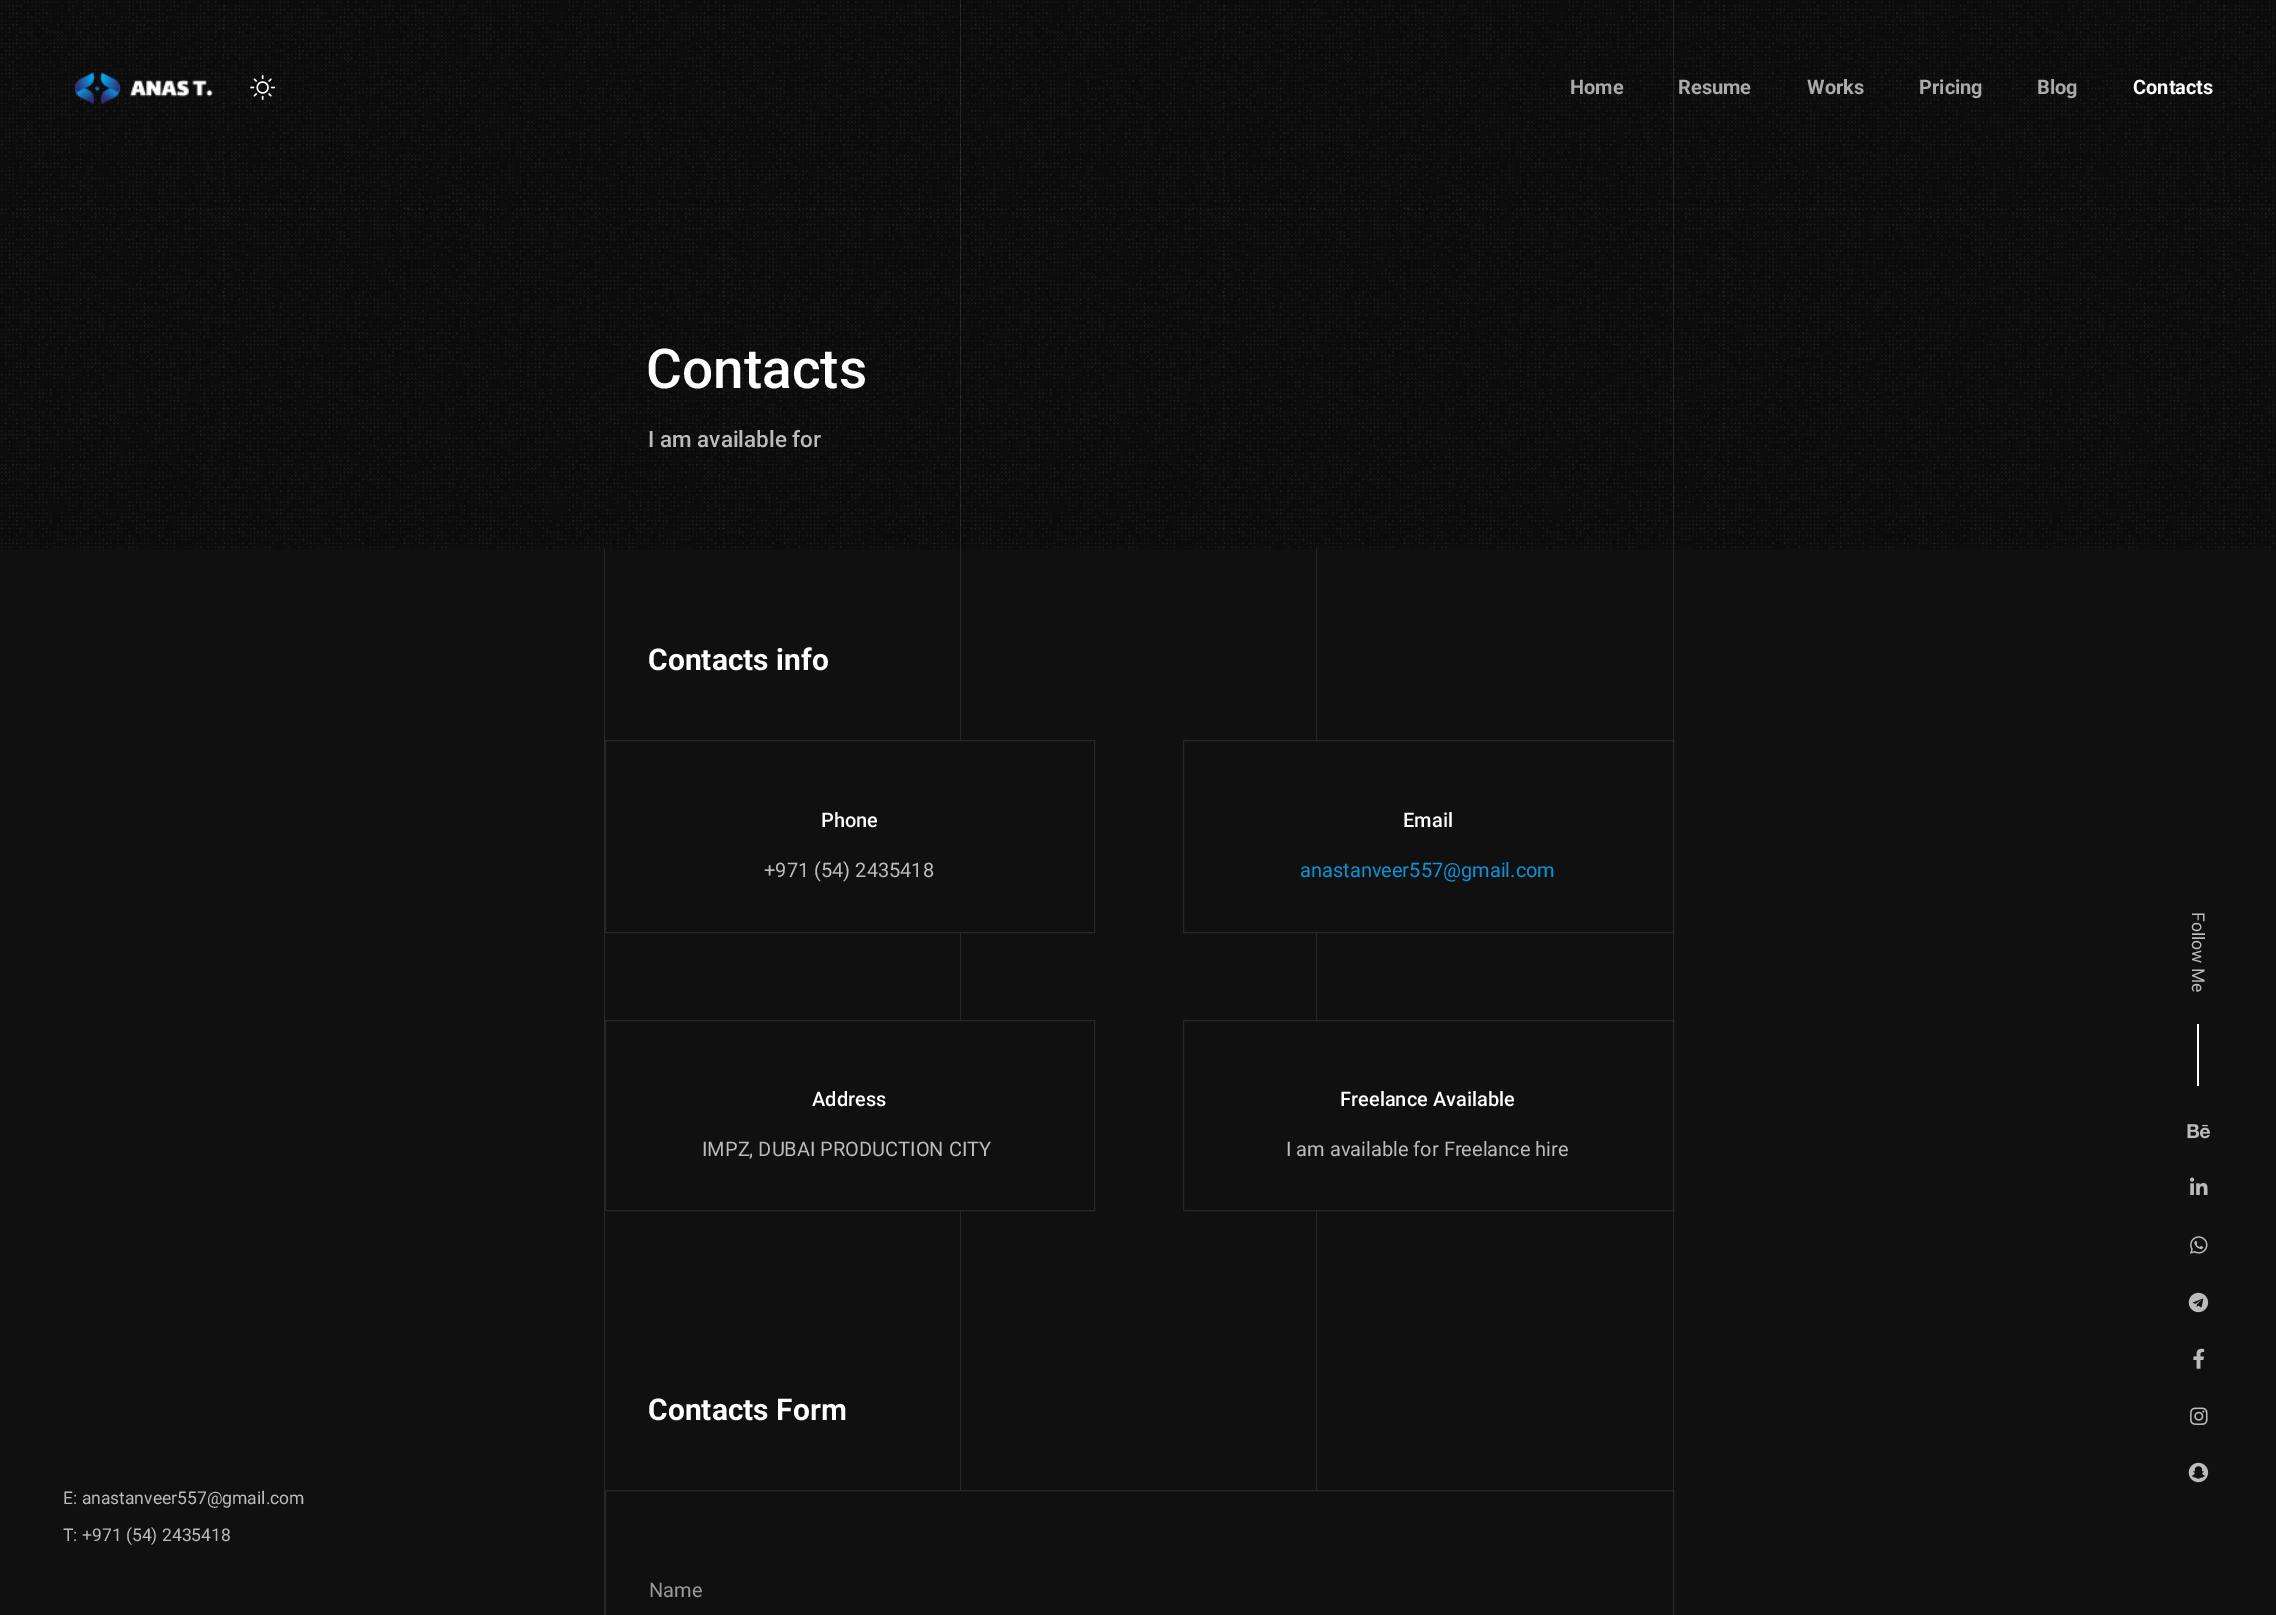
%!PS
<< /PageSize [2276 1615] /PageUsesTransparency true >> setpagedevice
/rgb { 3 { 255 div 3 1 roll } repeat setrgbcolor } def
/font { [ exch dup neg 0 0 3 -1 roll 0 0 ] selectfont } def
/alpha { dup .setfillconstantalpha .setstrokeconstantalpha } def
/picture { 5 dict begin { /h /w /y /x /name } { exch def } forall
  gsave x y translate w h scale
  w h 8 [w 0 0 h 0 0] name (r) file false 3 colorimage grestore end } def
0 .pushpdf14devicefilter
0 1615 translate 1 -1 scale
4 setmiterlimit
16 16 16 rgb
0 0 2276 1615 rectfill
[
  [1316 549 1 941 40 40 40]
  [604 549 1 1066 40 40 40]
  [0 0 2276 549 12 12 12]
  [1316 0 1 549 36 36 36]
  [604 0 1 549 36 36 36]
] { aload pop rgb rectfill } forall
(img/3.rgb) 1 1 2273 547 picture
0.1 alpha
255 255 255 rgb
960 0 1 1490 rectfill
1673 0 1 1490 rectfill
1 alpha
(img/1.rgb) 74 72 139 32 picture
(img/2.rgb) 250 75 25 25 picture
16 16 16 rgb
960 741 1 191 rectfill
40 40 40 rgb
605.5 740.5 489 192 rectstroke
16 16 16 rgb
1316 741 1 191 rectfill
40 40 40 rgb
1183.5 740.5 490 192 rectstroke
16 16 16 rgb
960 1021 1 189 rectfill
40 40 40 rgb
605.5 1020.5 489 190 rectstroke
16 16 16 rgb
1316 1021 1 189 rectfill
40 40 40 rgb
1183.5 1020.5 490 190 rectstroke
605.5 1490.5 1068 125 rectstroke
255 255 255 rgb
2197 1024 2 62 rectfill
(img/4.rgb) 2187 1124 23 15 picture
(img/5.rgb) 2190 1177 18 18 picture
(img/6.rgb) 2190 1236 18 18 picture
(img/7.rgb) 2188 1292 21 21 picture
(img/8.rgb) 2193 1348 12 21 picture
(img/9.rgb) 2190 1407 18 18 picture
(img/10.rgb) 2188 1462 21 21 picture
/Roboto-Bold 20 font
170 170 170 rgb
1570 94 moveto (Home) show
gsave
1679 63 72 50 rectclip
1678 94 moveto (Resume) show
grestore
[
  [(Works) 1807 94]
  [(Pricing) 1919 94]
  [(Blog) 2037 94]
] { aload pop moveto show } forall
255 255 255 rgb
2133 94 moveto (Contacts) show
/Roboto-Medium 55 font
646 388 moveto (Contacts) show
/Roboto-Medium 22.5 font
187 187 187 rgb
648 447 moveto (I am available for) show
/Roboto-Bold 30 font
255 255 255 rgb
648 670 moveto (Contacts info) show
/Roboto-Medium 20 font
821 827 moveto (Phone) show
/Roboto-Regular 20 font
187 187 187 rgb
764 877 moveto (+971 \(54\) 2435418) show
/Roboto-Medium 20 font
255 255 255 rgb
1403 827 moveto (Email) show
/Roboto-Regular 20 font
12 146 215 rgb
1300 877 moveto (anastanveer557@gmail.com) show
/Roboto-Medium 20 font
255 255 255 rgb
812 1106 moveto (Address) show
/Roboto-Regular 20 font
187 187 187 rgb
702 1156 moveto (IMPZ, DUBAI PRODUCTION CITY) show
/Roboto-Medium 20 font
255 255 255 rgb
1340 1106 moveto (Freelance Available) show
/Roboto-Regular 20 font
187 187 187 rgb
1286 1156 moveto (I am available for Freelance hire) show
/Roboto-Bold 30 font
255 255 255 rgb
648 1420 moveto (Contacts Form) show
/Roboto-Regular 20 font
153 153 153 rgb
649 1597 moveto (Name) show
/Roboto-Regular 17.5 font
187 187 187 rgb
gsave 2192 912 translate 90 rotate 0 0 moveto (Follow Me) show grestore
63 1504 moveto (E: anastanveer557@gmail.com) show
63 1541 moveto (T: +971 \(54\) 2435418) show
.poppdf14devicefilter showpage
